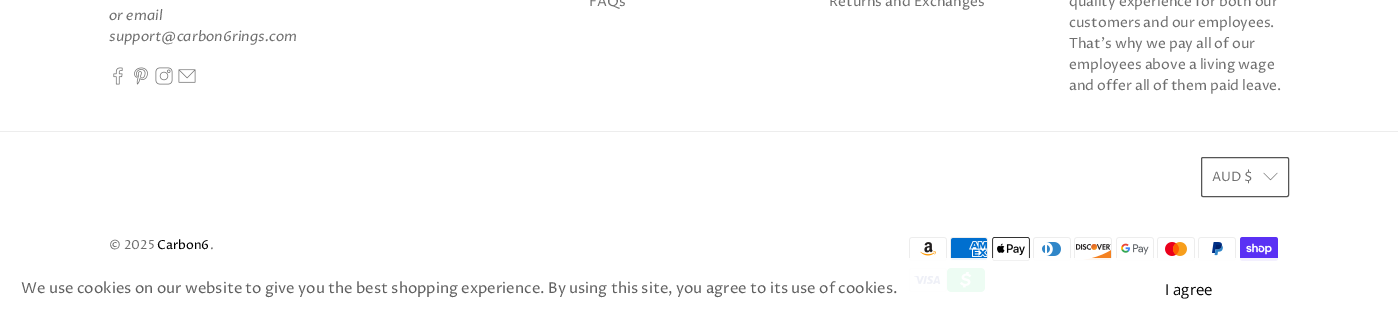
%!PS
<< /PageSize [1398 320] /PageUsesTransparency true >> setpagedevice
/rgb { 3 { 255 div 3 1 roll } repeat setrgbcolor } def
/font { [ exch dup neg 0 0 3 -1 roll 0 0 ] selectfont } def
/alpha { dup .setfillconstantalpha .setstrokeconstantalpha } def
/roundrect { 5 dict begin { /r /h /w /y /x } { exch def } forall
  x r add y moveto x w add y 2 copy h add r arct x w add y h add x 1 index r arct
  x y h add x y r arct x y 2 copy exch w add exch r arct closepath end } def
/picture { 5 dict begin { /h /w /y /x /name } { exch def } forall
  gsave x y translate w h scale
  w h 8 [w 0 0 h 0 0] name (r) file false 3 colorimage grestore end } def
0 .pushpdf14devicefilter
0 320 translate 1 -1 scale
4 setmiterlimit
255 255 255 rgb
0 0 1398 320 rectfill
237 237 237 rgb
0 131 1398 1 rectfill
(img/1.rgb) 113 67 10 18 picture
(img/2.rgb) 134 67 14 18 picture
(img/3.rgb) 155 67 18 18 picture
(img/4.rgb) 178 69 18 14 picture
86 86 86 rgb
1201.5 157.5 87 39 1.5 roundrect stroke
(img/5.rgb) 1263 172 15 9 picture
(img/6.rgb) 909 237 38 24 picture
(img/7.rgb) 950 237 38 24 picture
(img/8.rgb) 992 237 38 24 picture
(img/9.rgb) 1033 237 38 24 picture
(img/10.rgb) 1074 237 38 24 picture
(img/11.rgb) 1116 237 38 24 picture
(img/12.rgb) 1157 237 38 24 picture
(img/13.rgb) 1198 237 38 24 picture
(img/14.rgb) 1240 237 38 24 picture
(img/15.rgb) 909 268 38 24 picture
(img/16.rgb) 947 268 38 24 picture
0.93 alpha
255 255 255 rgb
909 258 369 34 rectfill
/ProzaLibre-Italic 14 font
1 alpha
111 111 111 rgb
109 20 moveto (or email) show
109 41 moveto (support@carbon6rings.com) show
/ProzaLibre-Regular 14 font
[
  [(FAQs) 589 6]
  [(Returns and Exchanges) 829 6]
  [(quality experience for both our) 1069 6]
  [(customers and our employees.) 1069 27]
  [(That's why we pay all of our) 1069 48]
  [(employees above a living wage) 1069 69]
  [(and offer all of them paid leave.) 1069 90]
] { aload pop moveto show } forall
/ProzaLibre-Regular 13 font
1212 181 moveto (AUD $) show
/ProzaLibre-Regular 12.5 font
109 249 moveto (© 2025) show
0 0 0 rgb
157 249 moveto (Carbon6) show
111 111 111 rgb
210 249 moveto (.) show
/ProzaLibre-Regular 15 font
96 96 96 rgb
21 293 moveto (We use cookies on our website to give you the best shopping experience. By using this site, you agree to its use of cookies.) show
/OpenSans-Regular 15 font
0 0 0 rgb
1165 295 moveto (I agree) show
.poppdf14devicefilter showpage
